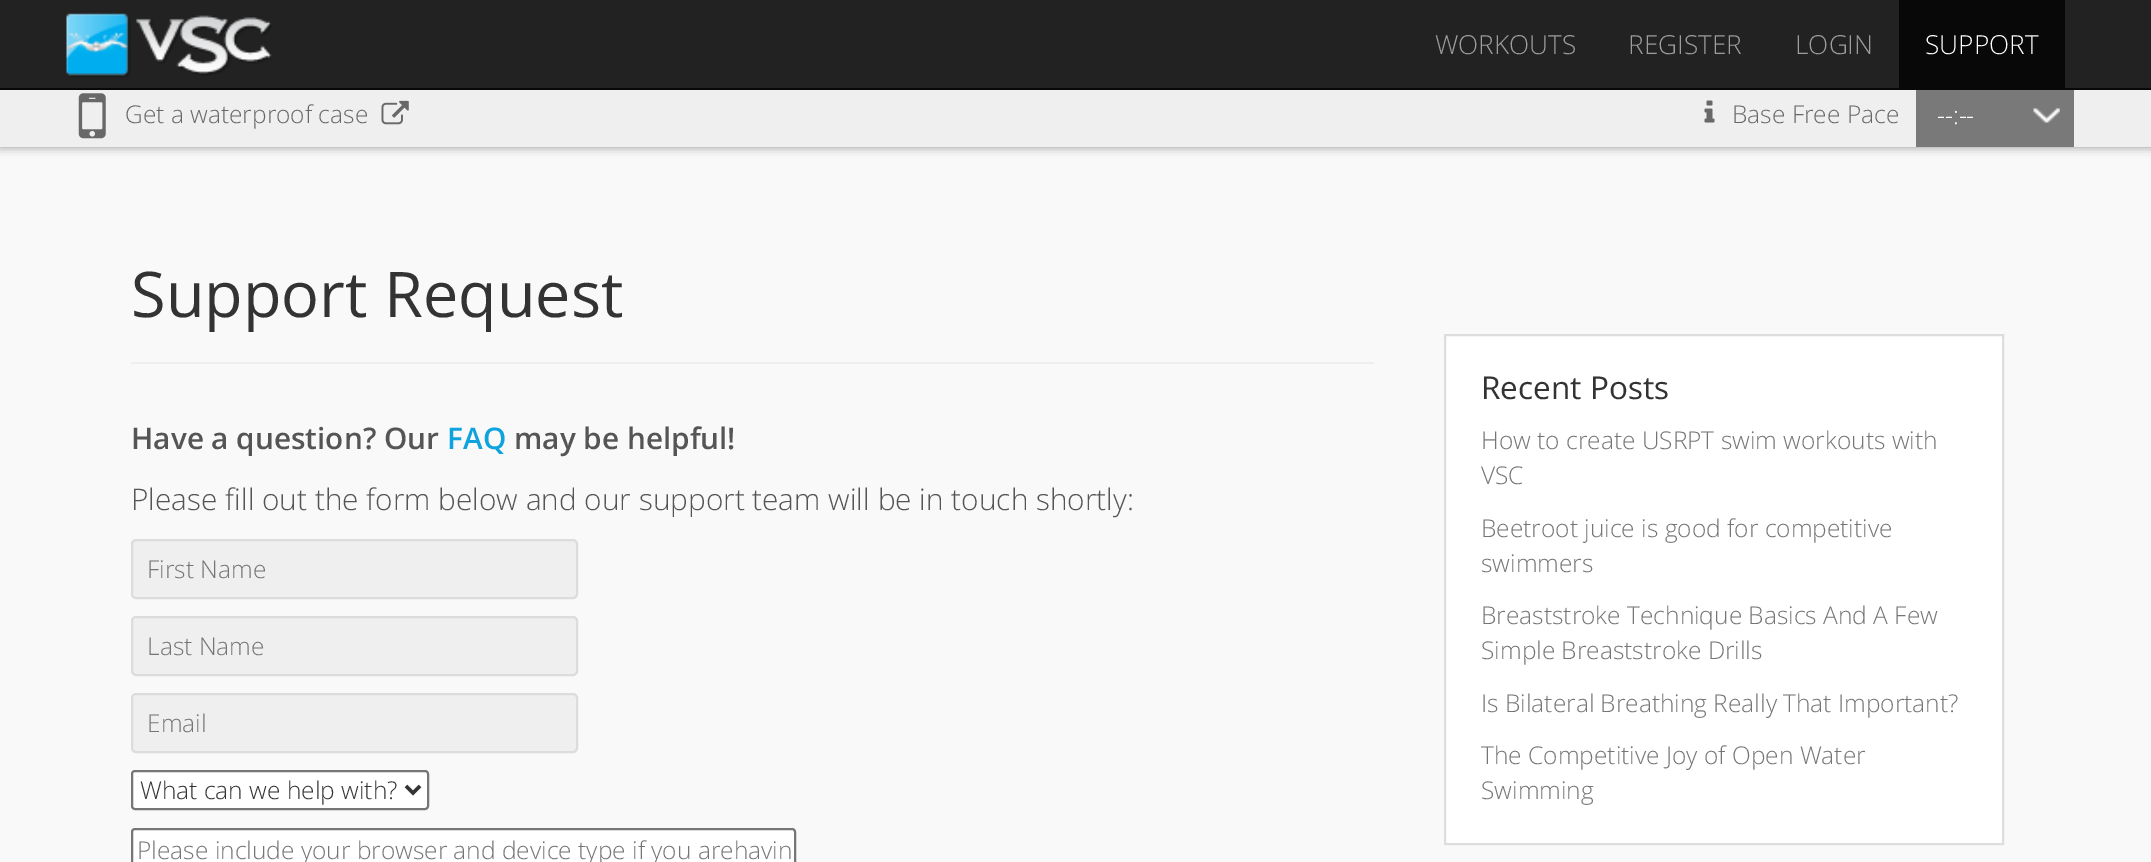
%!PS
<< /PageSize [2151 862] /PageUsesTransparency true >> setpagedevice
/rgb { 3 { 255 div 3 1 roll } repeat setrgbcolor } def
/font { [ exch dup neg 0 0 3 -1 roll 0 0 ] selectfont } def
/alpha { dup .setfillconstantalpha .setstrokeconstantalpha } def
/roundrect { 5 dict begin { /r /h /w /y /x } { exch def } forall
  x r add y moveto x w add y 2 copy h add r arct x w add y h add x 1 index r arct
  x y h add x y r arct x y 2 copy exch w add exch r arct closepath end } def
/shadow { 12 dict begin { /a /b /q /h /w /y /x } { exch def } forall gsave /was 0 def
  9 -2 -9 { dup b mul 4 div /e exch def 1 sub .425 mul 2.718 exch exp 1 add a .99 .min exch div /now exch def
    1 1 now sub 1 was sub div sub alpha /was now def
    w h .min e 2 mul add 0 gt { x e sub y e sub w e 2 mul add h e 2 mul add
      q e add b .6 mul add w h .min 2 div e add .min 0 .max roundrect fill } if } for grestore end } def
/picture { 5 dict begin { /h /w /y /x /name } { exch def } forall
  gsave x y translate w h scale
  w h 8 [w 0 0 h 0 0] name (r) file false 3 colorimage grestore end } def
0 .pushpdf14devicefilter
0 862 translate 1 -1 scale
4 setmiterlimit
249 249 249 rgb
0 0 2151 862 rectfill
0 0 0 rgb
0 84 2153 63 0 5 0.4 shadow
34 34 34 rgb
0 0 2151 88 rectfill
8 8 8 rgb
0 88 2151 2 rectfill
(img/1.rgb) 66 13 206 65 picture
1899 0 166 88 rectfill
239 239 239 rgb
0 90 2151 57 rectfill
(img/2.rgb) 78 93 28 46 picture
(img/3.rgb) 381 100 28 25 picture
(img/4.rgb) 1704 100 11 23 picture
121 121 121 rgb
1916 90 158 57 rectfill
(img/5.rgb) 2033 108 27 15 picture
238 238 238 rgb
131 362 1243 2 rectfill
239 239 239 rgb
132 540 445 58 4 roundrect gsave fill grestore
220 220 220 rgb
2 setlinewidth
stroke
239 239 239 rgb
132 617 445 58 4 roundrect gsave fill grestore
220 220 220 rgb
stroke
239 239 239 rgb
132 694 445 58 4 roundrect gsave fill grestore
220 220 220 rgb
stroke
255 255 255 rgb
132 771 296 38 3 roundrect gsave fill grestore
118 118 118 rgb
stroke
51 51 51 rgb
3.5 setlinewidth
406 786 moveto 413 793 lineto 420 786 lineto stroke
255 255 255 rgb
132 829 663 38 3 roundrect gsave fill grestore
118 118 118 rgb
2 setlinewidth
stroke
255 255 255 rgb
1445 335 moveto 2003 335 lineto 2003 844 lineto 1445 844 lineto closepath gsave fill grestore
221 221 221 rgb
stroke
/OpenSans-Light 26.25 font
157 157 157 rgb
[
  [(WORKOUTS) 1435 54]
  [(REGISTER) 1628 54]
  [(LOGIN) 1795 54]
] { aload pop moveto show } forall
255 255 255 rgb
1925 54 moveto (SUPPORT) show
/OpenSans-Light 24.5 font
104 104 104 rgb
125 123 moveto (Get a waterproof case) show
1732 123 moveto (Base Free Pace) show
255 255 255 rgb
1937 124 moveto (--:--) show
/OpenSans-Regular 63 font
51 51 51 rgb
131 317 moveto (Support Request) show
/OpenSans-SemiBold 29.75 font
85 85 85 rgb
131 449 moveto (Have a question? Our) show
14 163 220 rgb
447 449 moveto (FAQ) show
85 85 85 rgb
514 449 moveto (may be helpful!) show
/OpenSans-Light 29.75 font
131 510 moveto (Please fill out the form below and our support team will be in touch shortly:) show
/OpenSans-Light 24.5 font
117 117 117 rgb
[
  [(First Name) 147 578]
  [(Last Name) 147 655]
  [(Email) 147 732]
] { aload pop moveto show } forall
51 51 51 rgb
140 799 moveto (What can we help with?) show
117 117 117 rgb
137 859 moveto (Please include your browser and device type if you arehavin) show
/OpenSans-Regular 31.5 font
51 51 51 rgb
1481 399 moveto (Recent Posts) show
/OpenSans-Light 24.5 font
117 117 117 rgb
[
  [(How to create USRPT swim workouts with) 1481 449]
  [(VSC) 1481 484]
  [(Beetroot juice is good for competitive) 1481 537]
  [(swimmers) 1481 572]
  [(Breaststroke Technique Basics And A Few) 1481 624]
  [(Simple Breaststroke Drills) 1481 659]
  [(Is Bilateral Breathing Really That Important?) 1481 712]
  [(The Competitive Joy of Open Water) 1481 764]
  [(Swimming) 1481 799]
] { aload pop moveto show } forall
.poppdf14devicefilter showpage
